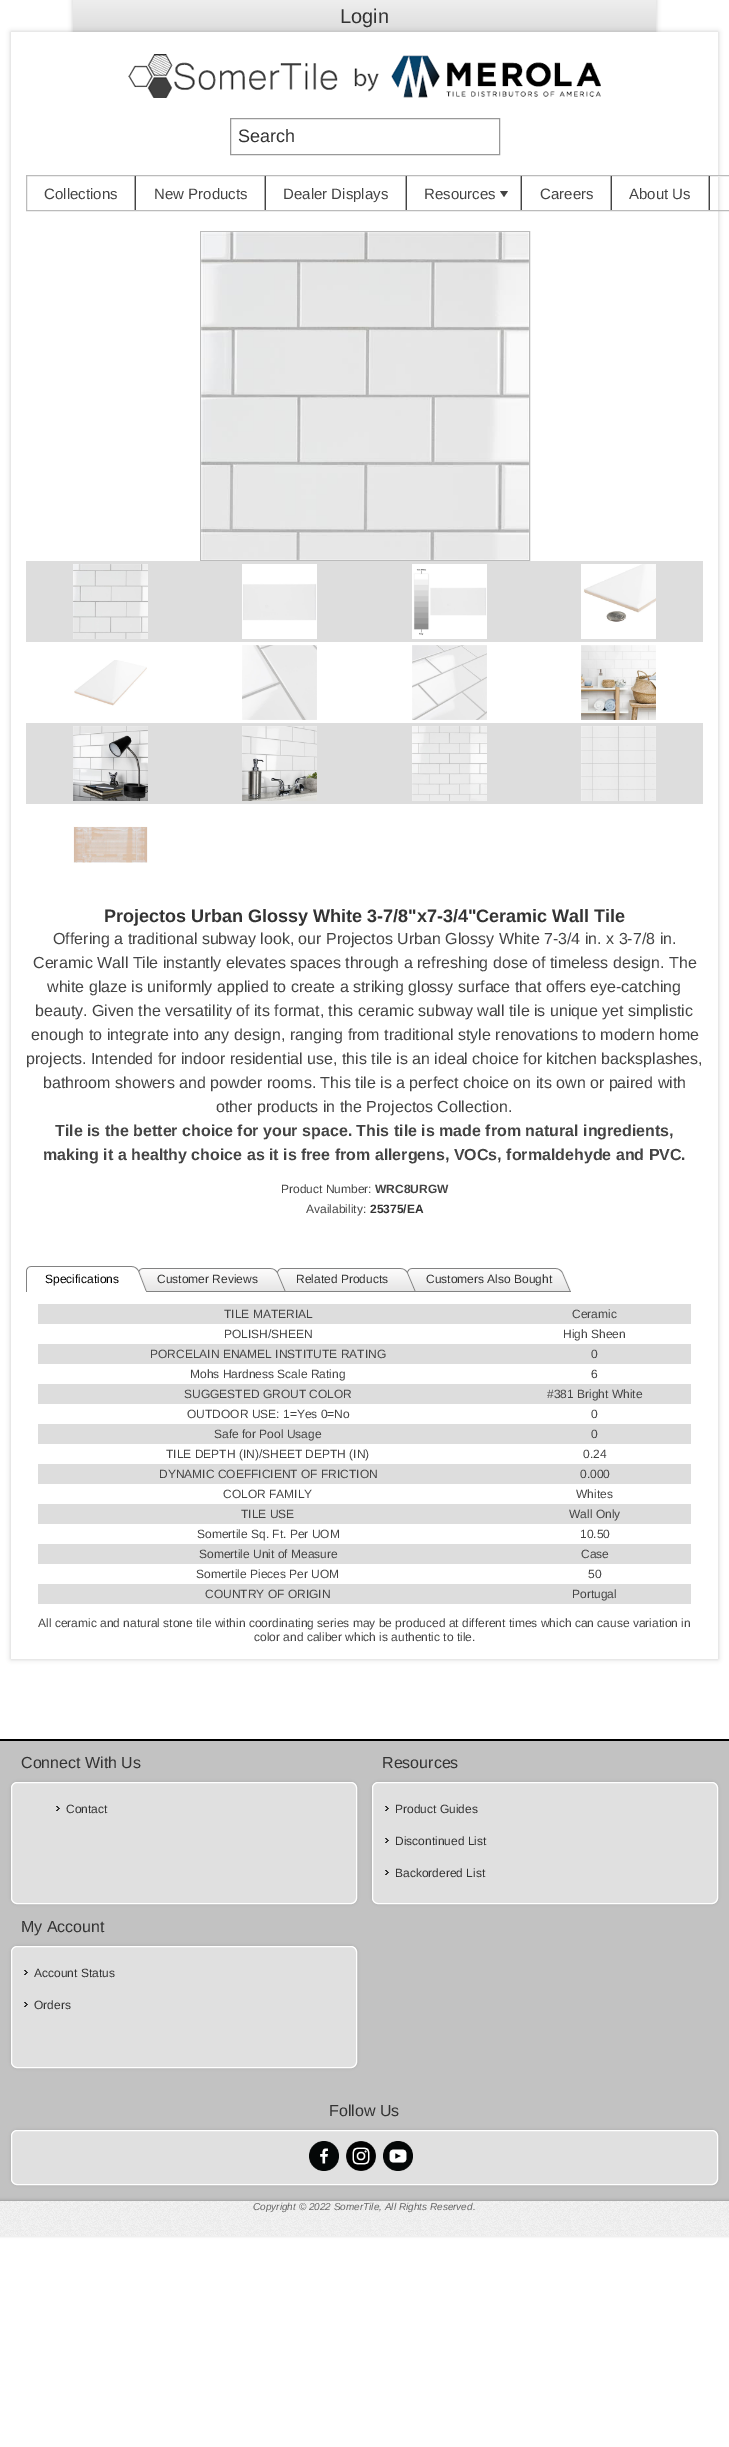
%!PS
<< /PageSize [729 2447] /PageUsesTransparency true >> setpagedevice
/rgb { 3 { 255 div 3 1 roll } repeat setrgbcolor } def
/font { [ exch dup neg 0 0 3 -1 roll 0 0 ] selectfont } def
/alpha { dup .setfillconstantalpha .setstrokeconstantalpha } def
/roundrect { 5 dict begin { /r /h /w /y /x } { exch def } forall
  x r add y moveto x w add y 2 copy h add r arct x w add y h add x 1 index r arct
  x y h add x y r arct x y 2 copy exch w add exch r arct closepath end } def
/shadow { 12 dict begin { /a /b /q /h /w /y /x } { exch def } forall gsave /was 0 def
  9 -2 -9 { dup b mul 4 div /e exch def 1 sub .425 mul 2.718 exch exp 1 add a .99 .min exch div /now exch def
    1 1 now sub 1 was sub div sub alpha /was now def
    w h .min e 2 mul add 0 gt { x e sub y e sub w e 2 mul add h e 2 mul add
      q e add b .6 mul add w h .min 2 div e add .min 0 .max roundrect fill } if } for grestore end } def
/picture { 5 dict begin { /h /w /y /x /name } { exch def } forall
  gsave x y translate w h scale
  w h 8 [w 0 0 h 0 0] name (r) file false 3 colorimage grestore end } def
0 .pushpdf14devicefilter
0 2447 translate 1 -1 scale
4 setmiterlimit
255 255 255 rgb
0 0 729 2447 rectfill
0 0 0 rgb
73 0 583 32 0 2.5 0.2 shadow
gsave 73 0 moveto 656 0 lineto 656 32 lineto 73 32 lineto closepath clip newpath
<< /ShadingType 2 /ColorSpace /DeviceRGB /Coords [365 0 365 32] /Extend [true true] /Function << /FunctionType 2 /Domain [0 1] /C0 [0.933 0.933 0.933] /C1 [0.867 0.867 0.867] /N 1 >> >> shfill grestore
11 32 707 1627 0 2.5 0.2 shadow
255 255 255 rgb
11 32 707 1627 rectfill
(img/1.rgb) 128 54 473 44 picture
153 153 153 rgb
230.5 118.5 269 36 rectstroke
255 255 255 rgb
718 176 11 1 rectfill
187 187 187 rgb
26.5 175.5 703 35 rectstroke
[
  [135 176 1 34 68 68 68]
  [134 176 1 34 170 170 170]
  [265 176 1 34 68 68 68]
  [264 176 1 34 170 170 170]
  [406 176 1 34 68 68 68]
  [405 176 1 34 170 170 170]
  [521 176 1 34 68 68 68]
  [520 176 1 34 170 170 170]
] { aload pop rgb rectfill } forall
68 68 68 rgb
504 197 moveto 500 191 lineto 508 191 lineto closepath fill
[
  [611 176 1 34 68 68 68]
  [610 176 1 34 170 170 170]
  [709 176 1 34 68 68 68]
  [708 176 1 34 170 170 170]
] { aload pop rgb rectfill } forall
187 187 187 rgb
200.5 231.5 329 329 rectstroke
(img/2.rgb) 201 232 328 328 picture
221 221 221 rgb
26 561 677 81 rectfill
(img/3.rgb) 73 564 75 75 picture
(img/4.rgb) 242 564 75 75 picture
(img/5.rgb) 412 564 75 75 picture
(img/6.rgb) 581 564 75 75 picture
(img/7.rgb) 74 660 73 46 picture
(img/8.rgb) 242 645 75 75 picture
(img/9.rgb) 412 645 75 75 picture
(img/10.rgb) 581 645 75 75 picture
26 723 677 81 rectfill
(img/11.rgb) 73 726 75 75 picture
(img/12.rgb) 242 726 75 75 picture
(img/13.rgb) 412 726 75 75 picture
(img/14.rgb) 581 726 75 75 picture
(img/15.rgb) 73 826 75 37 picture
(img/16.rgb) 26 1266 9 26 picture
(img/17.rgb) 35 1266 103 5 picture
(img/18.rgb) 138 1268 9 24 picture
(img/19.rgb) 147 1268 130 24 picture
(img/20.rgb) 277 1268 9 24 picture
(img/21.rgb) 286 1268 121 24 picture
(img/20.rgb) 407 1268 9 24 picture
(img/22.rgb) 416 1268 155 24 picture
[
  [38 1304 653 20 221 221 221]
  [38 1344 653 20 221 221 221]
  [38 1384 653 20 221 221 221]
  [38 1424 653 20 221 221 221]
  [38 1464 653 20 221 221 221]
  [38 1504 653 20 221 221 221]
  [38 1544 653 20 221 221 221]
  [38 1584 653 20 221 221 221]
] { aload pop rgb rectfill } forall
(img/23.rgb) 0 1739 729 461 picture
0 0 0 rgb
11 1782 346 122 6 1.5 0.1 shadow
224 224 224 rgb
11.5 1782.5 345 121 5.5 roundrect gsave fill grestore
255 255 255 rgb
stroke
(img/24.rgb) 56 1806 4 5 picture
0 0 0 rgb
372 1782 346 122 6 1.5 0.1 shadow
224 224 224 rgb
372.5 1782.5 345 121 5.5 roundrect gsave fill grestore
255 255 255 rgb
stroke
(img/24.rgb) 385 1806 4 5 picture
(img/24.rgb) 385 1838 4 5 picture
(img/24.rgb) 385 1870 4 5 picture
0 0 0 rgb
11 1946 346 122 6 1.5 0.1 shadow
224 224 224 rgb
11.5 1946.5 345 121 5.5 roundrect gsave fill grestore
255 255 255 rgb
stroke
(img/24.rgb) 24 1970 4 5 picture
(img/24.rgb) 24 2002 4 5 picture
0 0 0 rgb
11 2130 707 55 6 1.5 0.1 shadow
224 224 224 rgb
11.5 2130.5 706 54 5.5 roundrect gsave fill grestore
255 255 255 rgb
stroke
(img/25.rgb) 309 2141 30 30 picture
(img/26.rgb) 346 2141 30 30 picture
(img/27.rgb) 383 2141 30 30 picture
0 0 0 rgb
0 2200 729 36 0 1.5 0.15 shadow
(img/28.rgb) 0 2201 729 35 picture
170 170 170 rgb
0 2200 729 1 rectfill
/LiberationSans-Regular 20 font
51 51 51 rgb
340 23 moveto (Login) show
/LiberationSans-Regular 18 font
238 142 moveto (Search) show
/LiberationSans-Regular 15 font
68 68 68 rgb
[
  [(Collections) 44 199]
  [(New Products) 154 199]
  [(Dealer Displays) 283 199]
  [(Resources) 424 199]
  [(Careers) 540 199]
  [(About Us) 629 199]
] { aload pop moveto show } forall
/LiberationSans-Bold 18 font
51 51 51 rgb
104 922 moveto (Projectos Urban Glossy White 3-7/8"x7-3/4"Ceramic Wall Tile) show
/LiberationSans-Regular 16 font
68 68 68 rgb
[
  [(Offering a traditional subway look, our Projectos Urban Glossy White 7-3/4 in. x 3-7/8 in.) 53 944]
  [(Ceramic Wall Tile instantly elevates spaces through a refreshing dose of timeless design. The) 33 968]
  [(white glaze is uniformly applied to create a striking glossy surface that offers eye-catching) 47 992]
  [(beauty. Given the versatility of its format, this ceramic subway wall tile is unique yet simplistic) 35 1016]
  [(enough to integrate into any design, ranging from traditional style renovations to modern home) 31 1040]
  [(projects. Intended for indoor residential use, this tile is an ideal choice for kitchen backsplashes,) 26 1064]
  [(bathroom showers and powder rooms. This tile is a perfect choice on its own or paired with) 43 1088]
  [(other products in the Projectos Collection.) 216 1112]
] { aload pop moveto show } forall
/LiberationSans-Bold 16 font
55 1136 moveto (Tile is the better choice for your space. This tile is made from natural ingredients,) show
43 1160 moveto (making it a healthy choice as it is free from allergens, VOCs, formaldehyde and PVC.) show
/LiberationSans-Regular 12 font
281 1193 moveto (Product Number:) show
/LiberationSans-Bold 12 font
375 1193 moveto (WRC8URGW) show
/LiberationSans-Regular 12 font
306 1213 moveto (Availability:) show
/LiberationSans-Bold 12 font
51 51 51 rgb
370 1213 moveto (25375/EA) show
/LiberationSans-Regular 12 font
0 0 0 rgb
45 1283 moveto (Specifications) show
51 51 51 rgb
[
  [(Customer Reviews) 157 1283]
  [(Related Products) 296 1283]
  [(Customers Also Bought) 426 1283]
] { aload pop moveto show } forall
68 68 68 rgb
[
  [(TILE MATERIAL) 224 1318]
  [(Ceramic) 572 1318]
  [(POLISH/SHEEN) 224 1338]
  [(High Sheen) 563 1338]
  [(PORCELAIN ENAMEL INSTITUTE RATING) 150 1358]
  [(0) 591 1358]
  [(Mohs Hardness Scale Rating) 190 1378]
  [(6) 591 1378]
  [(SUGGESTED GROUT COLOR) 184 1398]
  [(#381 Bright White) 547 1398]
  [(OUTDOOR USE: 1=Yes 0=No) 187 1418]
  [(0) 591 1418]
  [(Safe for Pool Usage) 214 1438]
  [(0) 591 1438]
  [(TILE DEPTH \(IN\)/SHEET DEPTH \(IN\)) 166 1458]
  [(0.24) 583 1458]
  [(DYNAMIC COEFFICIENT OF FRICTION) 159 1478]
  [(0.000) 580 1478]
  [(COLOR FAMILY) 223 1498]
  [(Whites) 576 1498]
  [(TILE USE) 241 1518]
  [(Wall Only) 569 1518]
  [(Somertile Sq. Ft. Per UOM) 197 1538]
  [(10.50) 580 1538]
  [(Somertile Unit of Measure) 199 1558]
  [(Case) 581 1558]
  [(Somertile Pieces Per UOM) 196 1578]
  [(50) 588 1578]
  [(COUNTRY OF ORIGIN) 205 1598]
  [(Portugal) 572 1598]
  [(All ceramic and natural stone tile within coordinating series may be produced at different times which can cause variation in) 38 1627]
  [(color and caliber which is authentic to tile.) 254 1641]
] { aload pop moveto show } forall
/LiberationSans-Regular 16 font
51 51 51 rgb
21 1768 moveto (Connect With Us) show
/LiberationSans-Regular 12 font
66 1813 moveto (Contact) show
/LiberationSans-Regular 16 font
382 1768 moveto (Resources) show
/LiberationSans-Regular 12 font
[
  [(Product Guides) 395 1813]
  [(Discontinued List) 395 1845]
  [(Backordered List) 395 1877]
] { aload pop moveto show } forall
/LiberationSans-Regular 16 font
21 1932 moveto (My Account) show
/LiberationSans-Regular 12 font
34 1977 moveto (Account Status) show
34 2009 moveto (Orders) show
/LiberationSans-Regular 16 font
329 2116 moveto (Follow Us) show
/LiberationSans-Italic 10 font
102 102 102 rgb
253 2210 moveto (Copyright © 2022 SomerTile, All Rights Reserved.) show
.poppdf14devicefilter showpage
